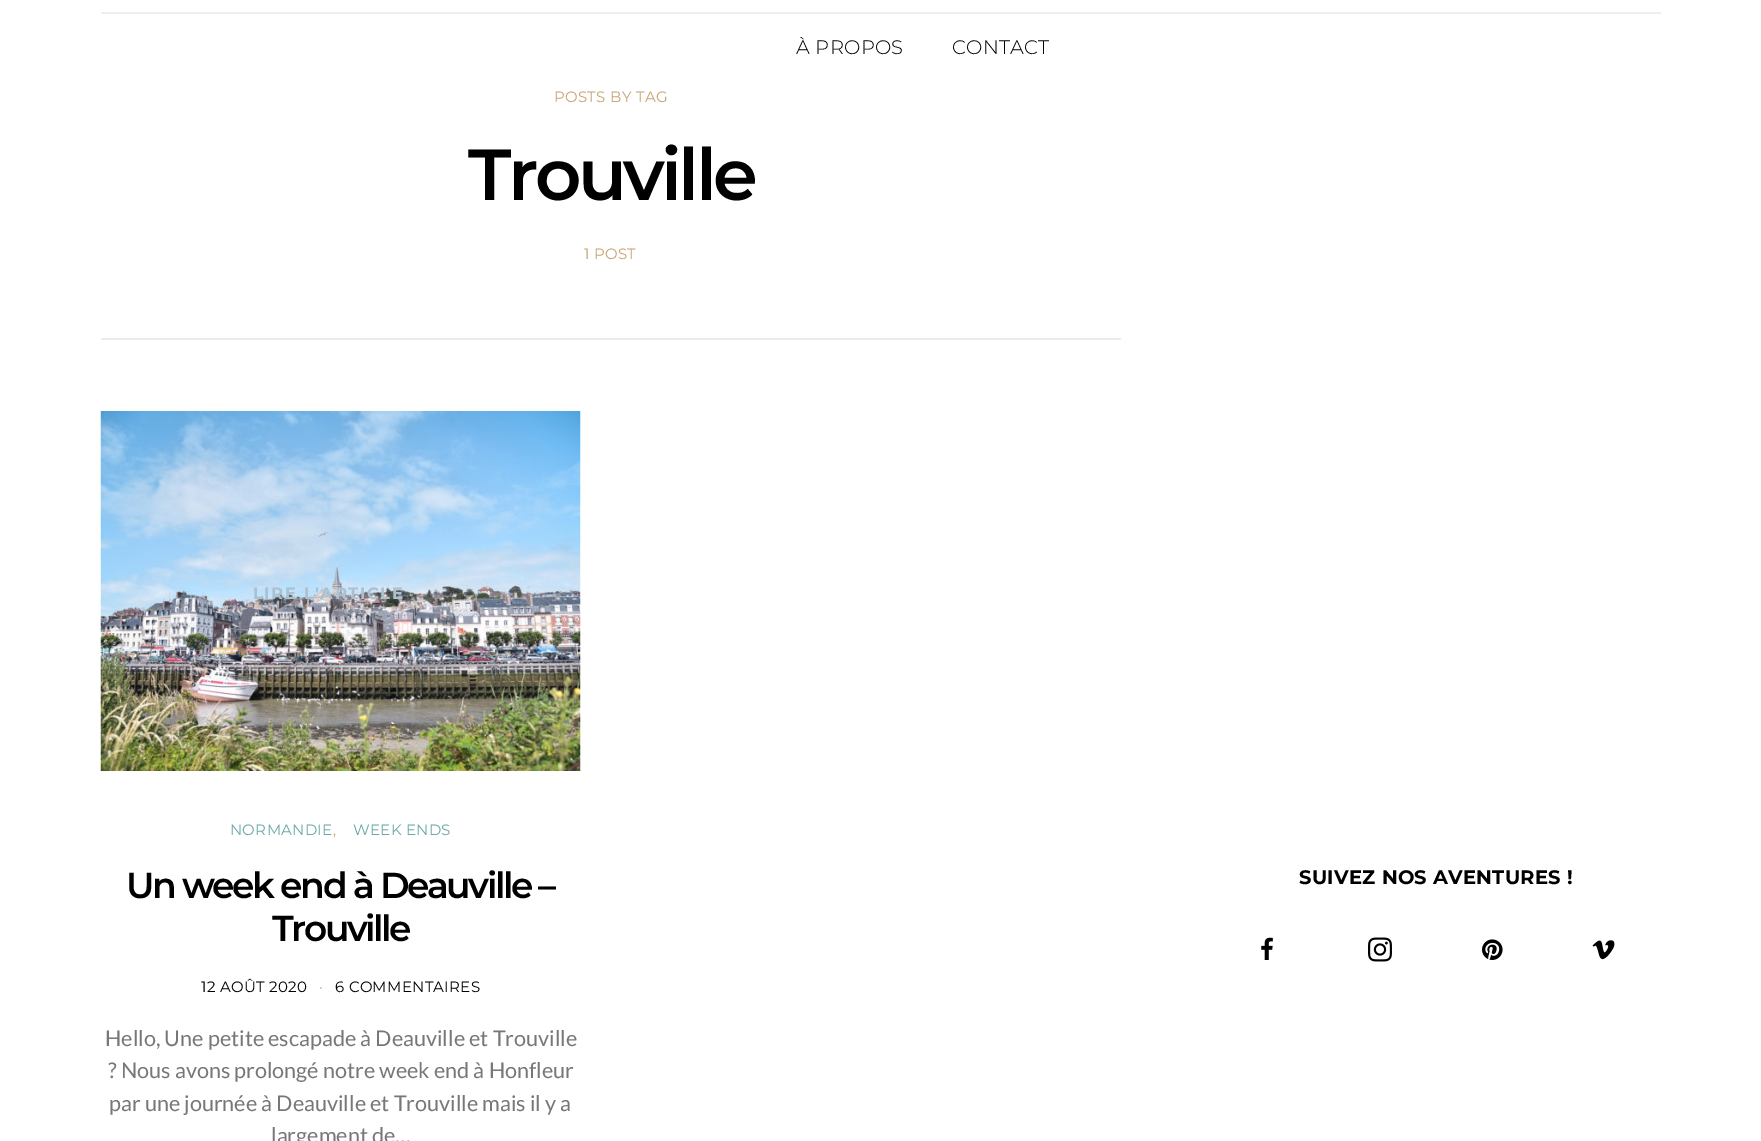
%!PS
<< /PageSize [1761 1141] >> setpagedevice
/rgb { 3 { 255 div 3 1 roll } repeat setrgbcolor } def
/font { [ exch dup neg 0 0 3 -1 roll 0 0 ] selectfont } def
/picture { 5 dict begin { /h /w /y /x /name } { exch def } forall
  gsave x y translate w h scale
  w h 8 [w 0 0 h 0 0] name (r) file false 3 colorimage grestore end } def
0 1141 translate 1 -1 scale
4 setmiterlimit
255 255 255 rgb
0 0 1761 1141 rectfill
238 238 238 rgb
101 12 1560 2 rectfill
233 236 239 rgb
101 338 1020 2 rectfill
(img/1.rgb) 100 411 481 360 picture
(img/2.rgb) 1261 937 12 23 picture
(img/3.rgb) 1368 937 24 25 picture
(img/4.rgb) 1482 939 21 21 picture
(img/5.rgb) 1592 940 23 20 picture
/Montserrat-Light 19.5 font
0 0 0 rgb
796 54 moveto 0.3 0 (À PROPOS) ashow
952 54 moveto 0.3 0 (CONTACT) ashow
/Montserrat-Regular 15 font
198 164 116 rgb
554 102 moveto 0.3 0 (POSTS BY TAG) ashow
/Montserrat-SemiBold 72 font
0 0 0 rgb
468 200 moveto -3.5 0 (Trouville) ashow
/Montserrat-Regular 15 font
198 164 116 rgb
584 259 moveto 0.3 0 (1 POST) ashow
/Montserrat-Bold 16.5 font
174 192 206 rgb
253 599 moveto 1.5 0 (LIRE L'ARTICLE) ashow
/Montserrat-Regular 15 font
107 168 169 rgb
230 835 moveto 0.3 0 (NORMANDIE) ashow
198 164 116 rgb
333 835 moveto 0.3 0 (,) ashow
107 168 169 rgb
353 835 moveto 0.3 0 (WEEK ENDS) ashow
/Montserrat-SemiBold 36 font
0 0 0 rgb
126 898 moveto -2.4 0 (Un week end à Deauville –) ashow
272 941 moveto -2.4 0 (Trouville) ashow
/Montserrat-Regular 15 font
201 992 moveto 0.3 0 (12 AOÛT 2020) ashow
198 164 116 rgb
319 992 moveto 0.3 0 (·) ashow
0 0 0 rgb
335 992 moveto 0.3 0 (6 COMMENTAIRES) ashow
/Lato-Regular 21.6 font
119 119 119 rgb
[
  [(Hello, Une petite escapade à Deauville et Trouville) 105 1046]
  [(? Nous avons prolongé notre week end à Honfleur) 108 1078]
  [(par une journée à Deauville et Trouville mais il y a) 109 1111]
  [(largement de…) 271 1143]
] { aload pop moveto show } forall
/Montserrat-Bold 19.5 font
0 0 0 rgb
1299 884 moveto 0.3 0 (SUIVEZ NOS AVENTURES !) ashow
showpage
